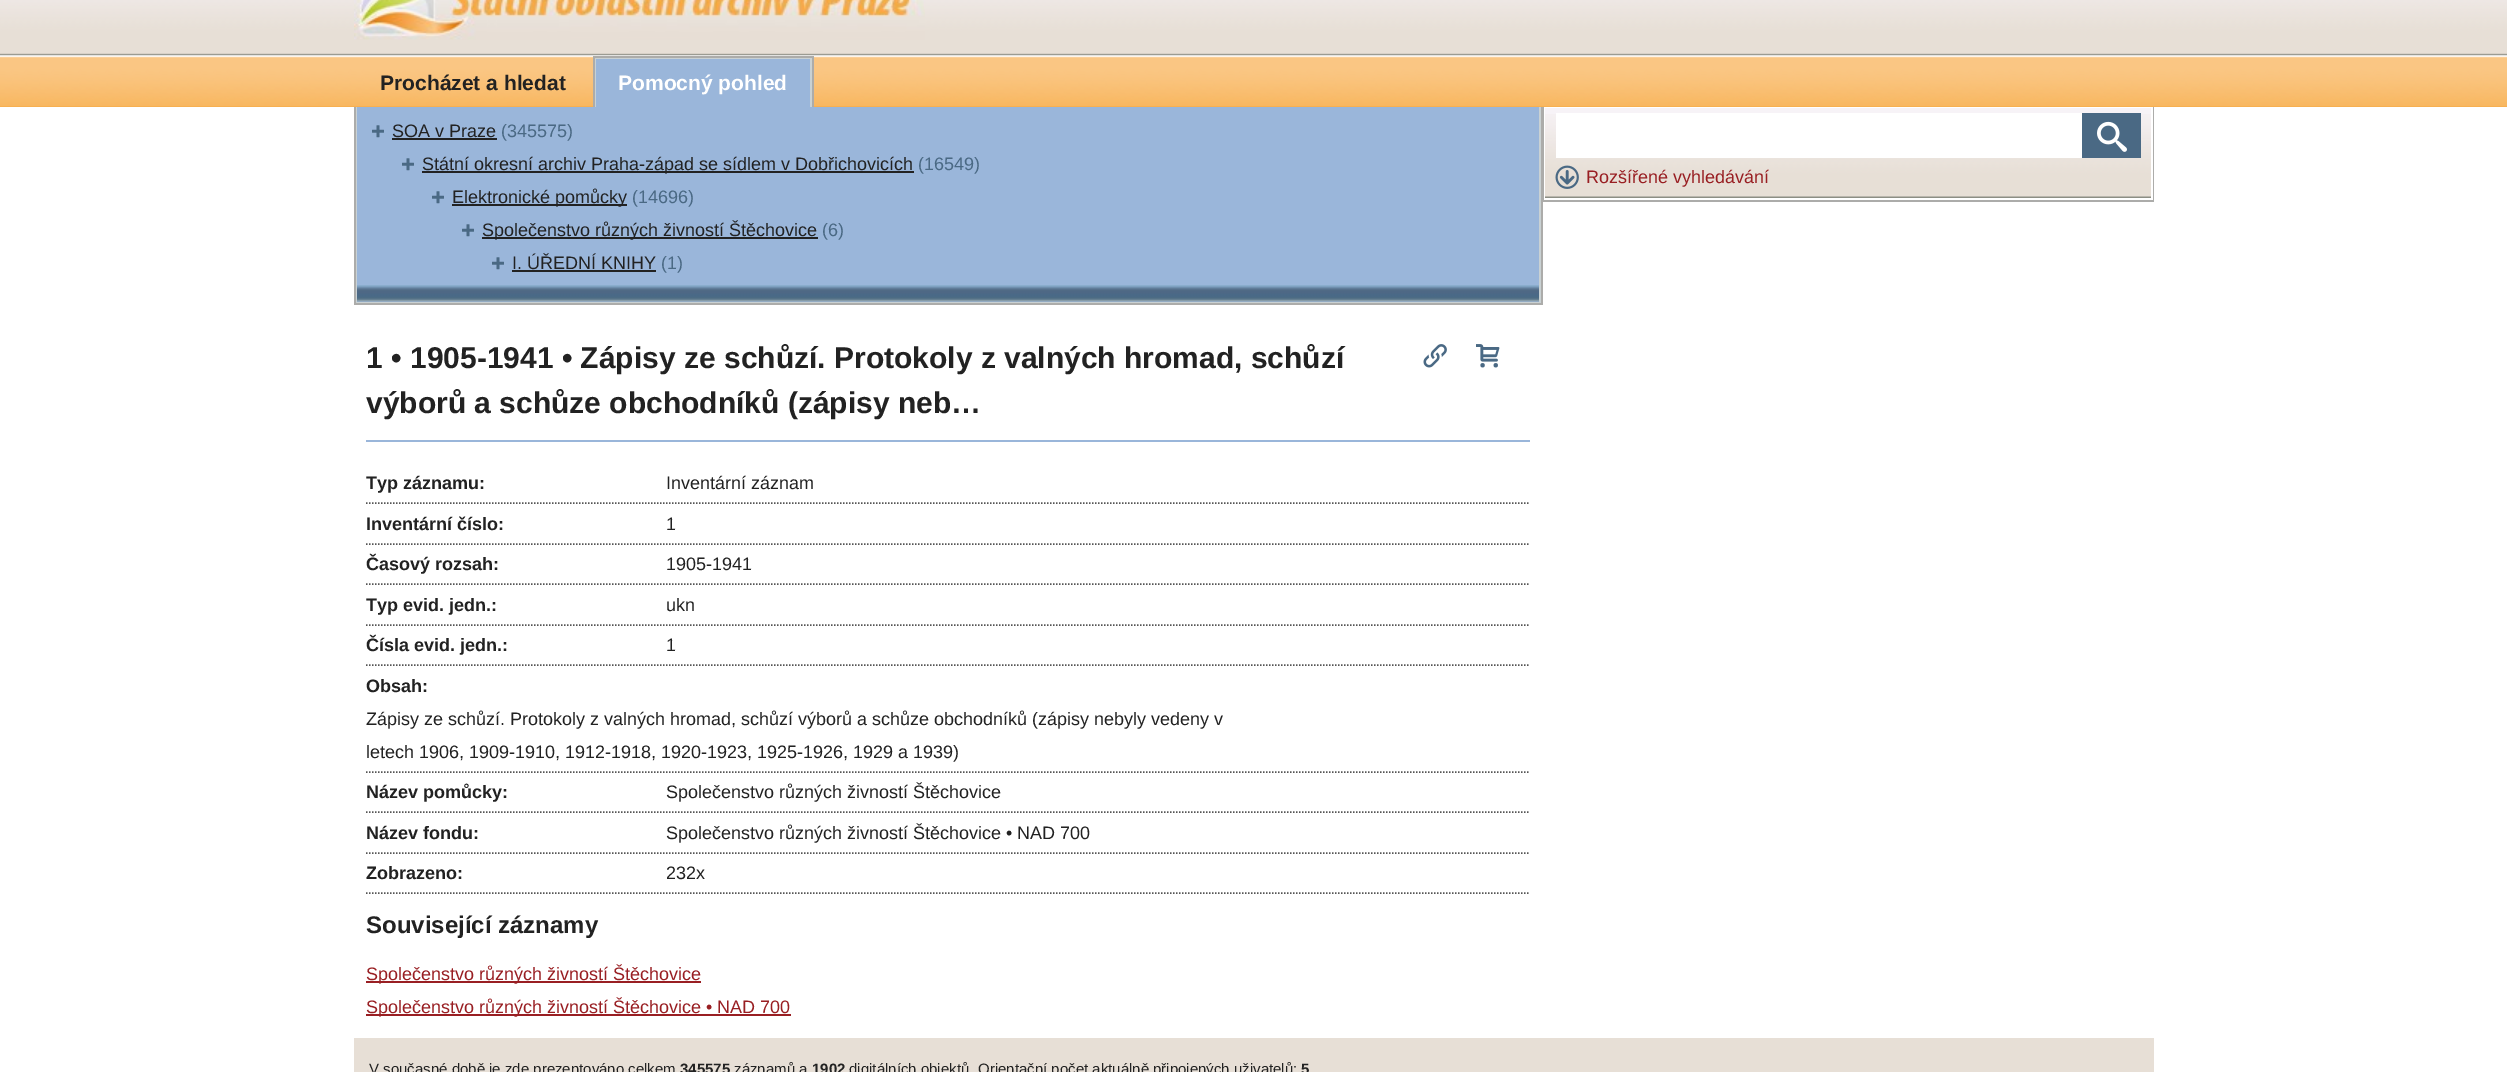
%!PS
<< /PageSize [2507 1072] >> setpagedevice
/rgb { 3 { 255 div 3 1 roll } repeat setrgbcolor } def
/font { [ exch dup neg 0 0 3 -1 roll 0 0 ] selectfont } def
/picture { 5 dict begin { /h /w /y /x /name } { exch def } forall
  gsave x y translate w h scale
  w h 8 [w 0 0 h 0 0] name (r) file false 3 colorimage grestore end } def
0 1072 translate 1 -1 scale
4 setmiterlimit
255 255 255 rgb
0 0 2507 1072 rectfill
(img/1.rgb) 0 0 2507 56 picture
(img/2.rgb) 354 0 571 40 picture
247 174 76 rgb
0 106 2507 1 rectfill
(img/3.rgb) 0 55 2507 52 picture
[
  [595 58 217 49 201 209 211]
  [593 56 220 2 172 172 170]
  [812 56 2 51 172 172 170]
  [593 56 2 51 172 172 170]
  [596 59 214 48 154 182 218]
  [356 107 1185 196 201 209 211]
  [2153 107 1 94 172 172 170]
  [1542 200 612 2 172 172 170]
  [1541 107 2 198 172 172 170]
  [354 303 1188 2 172 172 170]
  [354 107 2 198 172 172 170]
  [357 107 1182 195 154 182 218]
] { aload pop rgb rectfill } forall
(img/4.rgb) 357 285 1182 17 picture
(img/5.rgb) 372 125 12 13 picture
34 34 34 rgb
392 138 105 2 rectfill
(img/5.rgb) 402 158 12 13 picture
422 171 492 2 rectfill
(img/5.rgb) 432 191 12 13 picture
452 204 175 2 rectfill
(img/5.rgb) 462 224 12 13 picture
482 237 336 2 rectfill
(img/5.rgb) 492 257 12 13 picture
512 270 144 2 rectfill
154 182 218 rgb
366 440 1164 2 rectfill
(img/6.rgb) 1423 344 24 24 picture
(img/7.rgb) 1476 344 24 24 picture
85 85 85 rgb
1.5 setlinewidth
[1.5 1.5] 0 setdash
366 503 moveto 1530 503 lineto stroke
366 544 moveto 1530 544 lineto stroke
366 584 moveto 1530 584 lineto stroke
366 625 moveto 1530 625 lineto stroke
366 665 moveto 1530 665 lineto stroke
366 772 moveto 1530 772 lineto stroke
366 812 moveto 1530 812 lineto stroke
366 853 moveto 1530 853 lineto stroke
366 893 moveto 1530 893 lineto stroke
[
  [366 981 335 2 153 31 35]
  [366 1014 425 2 153 31 35]
  [1543 107 1 94 172 172 170]
  [1545 108 606 6 247 243 247]
] { aload pop rgb rectfill } forall
(img/8.rgb) 1545 114 606 84 picture
255 255 255 rgb
1556 113 526 45 rectfill
74 105 132 rgb
2082 113 59 45 rectfill
(img/9.rgb) 2097 121 30 31 picture
(img/10.rgb) 1555 165 24 24 picture
231 223 214 rgb
354 1038 1800 34 rectfill
/LiberationSans-Bold 21 font
34 34 34 rgb
380 90 moveto (Procházet a hledat) show
255 255 255 rgb
618 90 moveto (Pomocný pohled) show
/LiberationSans-Regular 18 font
34 34 34 rgb
392 137 moveto (SOA v Praze) show
74 105 132 rgb
501 137 moveto (\(345575\)) show
34 34 34 rgb
422 170 moveto (Státní okresní archiv Praha-západ se sídlem v Dobřichovicích) show
74 105 132 rgb
918 170 moveto (\(16549\)) show
34 34 34 rgb
452 203 moveto (Elektronické pomůcky) show
74 105 132 rgb
632 203 moveto (\(14696\)) show
34 34 34 rgb
482 236 moveto (Společenstvo různých živností Štěchovice) show
74 105 132 rgb
822 236 moveto (\(6\)) show
34 34 34 rgb
512 269 moveto (I. ÚŘEDNÍ KNIHY) show
74 105 132 rgb
661 269 moveto (\(1\)) show
/LiberationSans-Bold 30 font
34 34 34 rgb
366 368 moveto (1 • 1905-1941 • Zápisy ze schůzí. Protokoly z valných hromad, schůzí) show
366 413 moveto (výborů a schůze obchodníků \(zápisy neb…) show
/LiberationSans-Bold 18 font
366 489 moveto (Typ záznamu:) show
/LiberationSans-Regular 18 font
666 489 moveto (Inventární záznam) show
/LiberationSans-Bold 18 font
366 530 moveto (Inventární číslo:) show
/LiberationSans-Regular 18 font
666 530 moveto (1) show
/LiberationSans-Bold 18 font
366 570 moveto (Časový rozsah:) show
/LiberationSans-Regular 18 font
666 570 moveto (1905-1941) show
/LiberationSans-Bold 18 font
366 611 moveto (Typ evid. jedn.:) show
/LiberationSans-Regular 18 font
666 611 moveto (ukn) show
/LiberationSans-Bold 18 font
366 651 moveto (Čísla evid. jedn.:) show
/LiberationSans-Regular 18 font
666 651 moveto (1) show
/LiberationSans-Bold 18 font
366 692 moveto (Obsah:) show
/LiberationSans-Regular 18 font
366 725 moveto (Zápisy ze schůzí. Protokoly z valných hromad, schůzí výborů a schůze obchodníků \(zápisy nebyly vedeny v) show
366 758 moveto (letech 1906, 1909-1910, 1912-1918, 1920-1923, 1925-1926, 1929 a 1939\)) show
/LiberationSans-Bold 18 font
366 798 moveto (Název pomůcky:) show
/LiberationSans-Regular 18 font
666 798 moveto (Společenstvo různých živností Štěchovice) show
/LiberationSans-Bold 18 font
366 839 moveto (Název fondu:) show
/LiberationSans-Regular 18 font
666 839 moveto (Společenstvo různých živností Štěchovice • NAD 700) show
/LiberationSans-Bold 18 font
366 879 moveto (Zobrazeno:) show
/LiberationSans-Regular 18 font
666 879 moveto (232x) show
/LiberationSans-Bold 24 font
366 933 moveto (Související záznamy) show
/LiberationSans-Regular 18 font
153 31 35 rgb
[
  [(Společenstvo různých živností Štěchovice) 366 980]
  [(Společenstvo různých živností Štěchovice • NAD 700) 366 1013]
  [(Rozšířené vyhledávání) 1586 183]
] { aload pop moveto show } forall
/LiberationSans-Regular 15 font
34 34 34 rgb
369 1074 moveto (V současné době je zde prezentováno celkem) show
/LiberationSans-Bold 15 font
680 1074 moveto (345575) show
/LiberationSans-Regular 15 font
734 1074 moveto (záznamů a) show
/LiberationSans-Bold 15 font
812 1074 moveto (1902) show
/LiberationSans-Regular 15 font
849 1074 moveto (digitálních objektů) show
978 1074 moveto (Orientační počet aktuálně připojených uživatelů:) show
/LiberationSans-Bold 15 font
1301 1074 moveto (5) show
showpage
